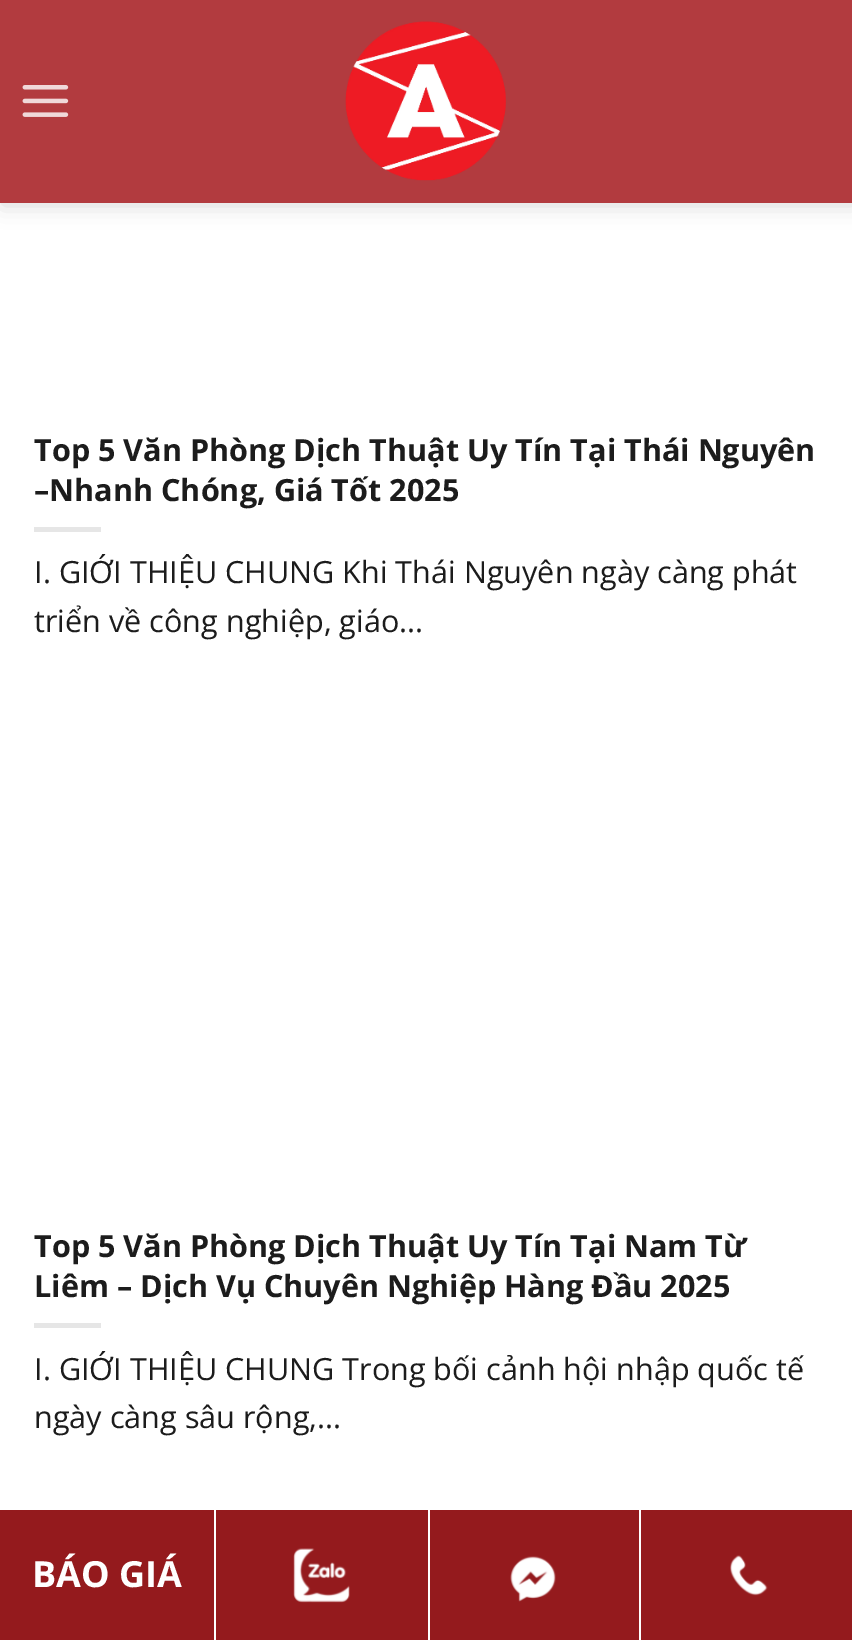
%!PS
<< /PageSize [852 1640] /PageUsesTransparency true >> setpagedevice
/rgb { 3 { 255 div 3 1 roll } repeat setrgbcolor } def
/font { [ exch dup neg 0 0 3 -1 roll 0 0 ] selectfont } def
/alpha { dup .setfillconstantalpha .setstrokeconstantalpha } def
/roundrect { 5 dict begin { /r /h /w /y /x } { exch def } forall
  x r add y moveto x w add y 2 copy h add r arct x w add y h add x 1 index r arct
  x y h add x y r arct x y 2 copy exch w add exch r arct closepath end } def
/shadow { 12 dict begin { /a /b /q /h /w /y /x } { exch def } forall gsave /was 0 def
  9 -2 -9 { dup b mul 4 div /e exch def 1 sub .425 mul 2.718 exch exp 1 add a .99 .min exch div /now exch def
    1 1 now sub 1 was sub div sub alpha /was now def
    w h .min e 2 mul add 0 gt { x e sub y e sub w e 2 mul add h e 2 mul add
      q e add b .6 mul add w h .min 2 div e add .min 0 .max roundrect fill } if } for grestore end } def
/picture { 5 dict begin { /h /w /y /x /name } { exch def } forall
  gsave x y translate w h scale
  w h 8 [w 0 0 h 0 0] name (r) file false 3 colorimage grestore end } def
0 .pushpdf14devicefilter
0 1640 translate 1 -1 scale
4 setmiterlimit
255 255 255 rgb
0 0 852 1640 rectfill
0 0 0 rgb
2 2 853 203 0 11 0.15 shadow
178 59 63 rgb
0 0 852 203 rectfill
(img/1.rgb) 22 85 47 32 picture
(img/2.rgb) 345 21 161 160 picture
[
  [34 527 67 5 230 230 230]
  [34 1323 67 5 230 230 230]
  [0 1510 852 130 148 26 29]
  [214 1510 2 130 255 255 255]
] { aload pop rgb rectfill } forall
(img/3.rgb) 293 1548 57 55 picture
428 1510 2 130 rectfill
(img/4.rgb) 510 1556 46 46 picture
639 1510 2 130 rectfill
(img/5.rgb) 730 1555 38 41 picture
/OpenSans-Bold 30.6 font
28 28 28 rgb
34 461 moveto (Top 5 Văn Phòng Dịch Thuật Uy Tín Tại Thái Nguyên) show
34 501 moveto (–Nhanh Chóng, Giá Tốt 2025) show
/OpenSans-Regular 30.6 font
34 583 moveto (I. GIỚI THIỆU CHUNG Khi Thái Nguyên ngày càng phát) show
34 632 moveto (triển về công nghiệp, giáo...) show
/OpenSans-Bold 30.6 font
34 1257 moveto (Top 5 Văn Phòng Dịch Thuật Uy Tín Tại Nam Từ) show
34 1297 moveto (Liêm – Dịch Vụ Chuyên Nghiệp Hàng Đầu 2025) show
/OpenSans-Regular 30.6 font
34 1380 moveto (I. GIỚI THIỆU CHUNG Trong bối cảnh hội nhập quốc tế) show
34 1428 moveto (ngày càng sâu rộng,...) show
/OpenSans-Bold 36 font
255 255 255 rgb
32 1587 moveto (BÁO GIÁ) show
.poppdf14devicefilter showpage
